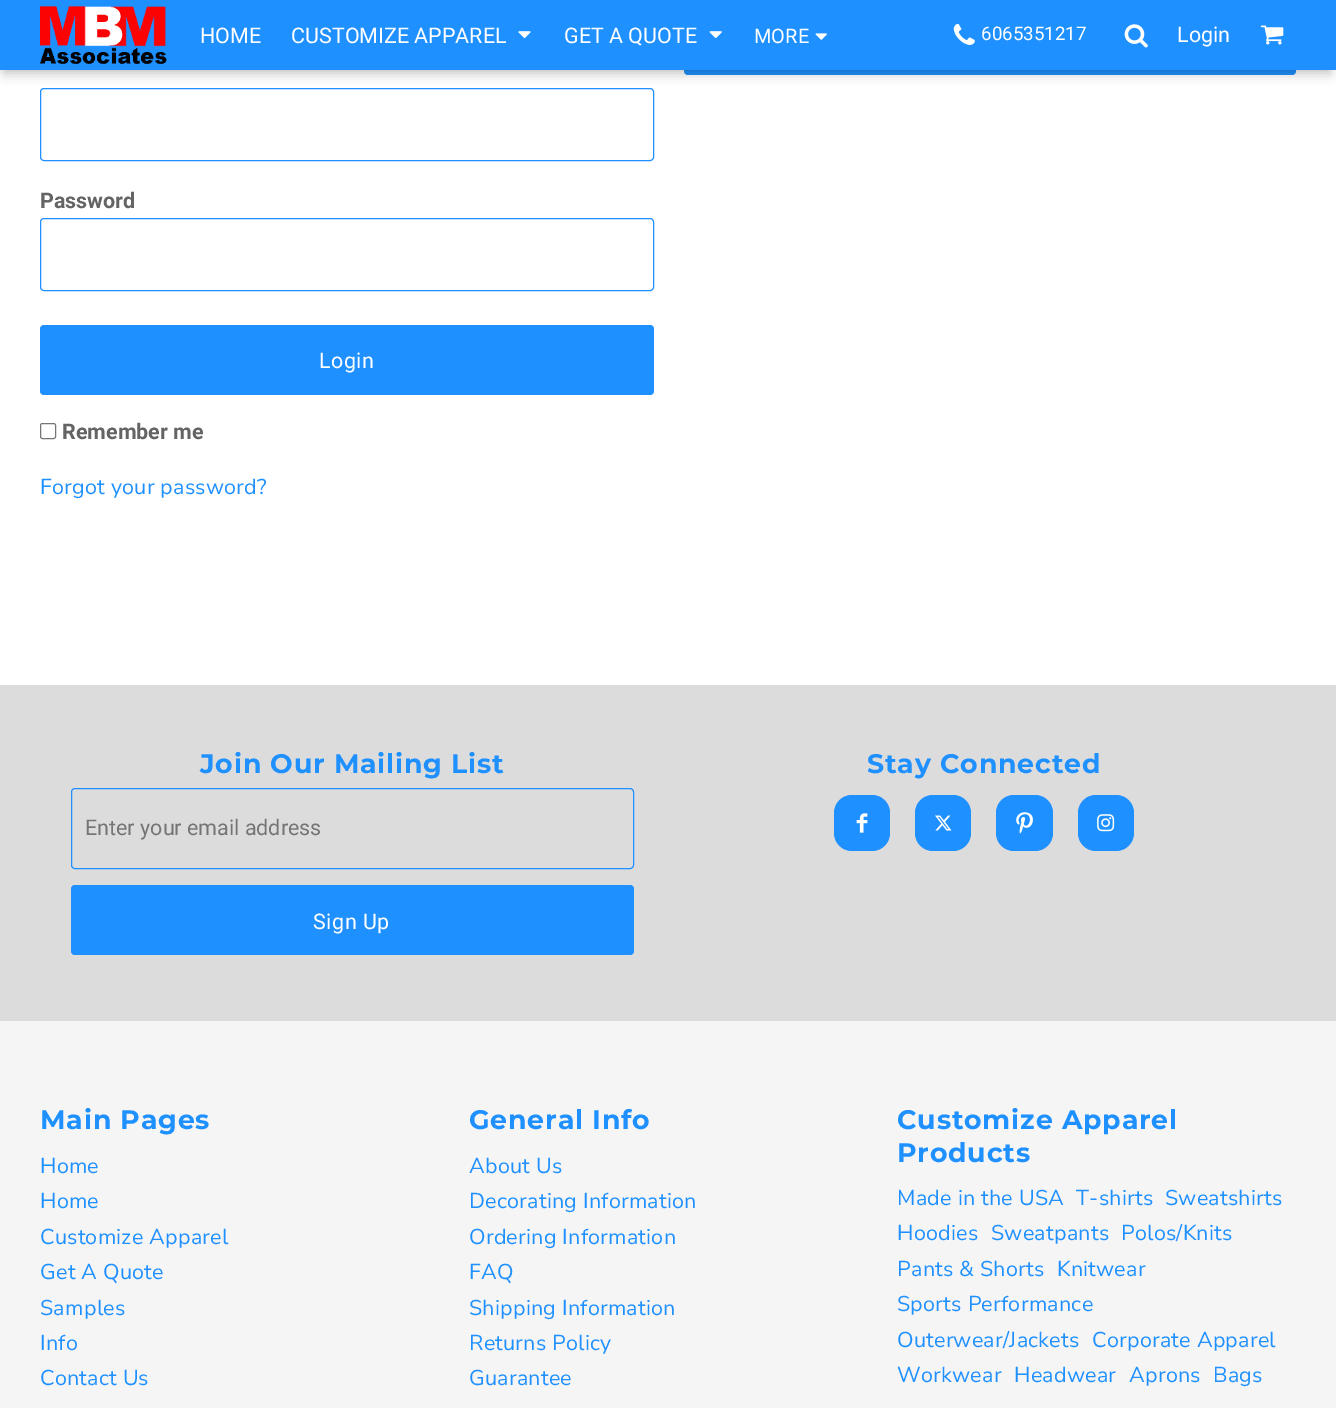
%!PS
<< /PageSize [1336 1408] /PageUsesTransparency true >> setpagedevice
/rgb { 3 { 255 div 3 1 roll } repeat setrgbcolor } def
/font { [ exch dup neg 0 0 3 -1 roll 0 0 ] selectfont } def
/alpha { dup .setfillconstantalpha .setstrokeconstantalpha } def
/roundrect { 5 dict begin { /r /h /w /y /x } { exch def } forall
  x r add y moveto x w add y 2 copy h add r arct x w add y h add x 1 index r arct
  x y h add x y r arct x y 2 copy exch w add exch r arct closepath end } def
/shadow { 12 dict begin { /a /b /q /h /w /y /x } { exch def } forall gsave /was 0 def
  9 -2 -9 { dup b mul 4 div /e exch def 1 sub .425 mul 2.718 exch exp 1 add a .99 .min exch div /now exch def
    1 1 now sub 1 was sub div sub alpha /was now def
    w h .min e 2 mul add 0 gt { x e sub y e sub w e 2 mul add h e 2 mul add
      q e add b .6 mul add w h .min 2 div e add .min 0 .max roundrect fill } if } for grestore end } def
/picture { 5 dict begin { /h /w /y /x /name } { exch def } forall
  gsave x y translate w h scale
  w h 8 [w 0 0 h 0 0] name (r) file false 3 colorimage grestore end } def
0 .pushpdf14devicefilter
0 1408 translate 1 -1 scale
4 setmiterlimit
255 255 255 rgb
0 0 1336 1408 rectfill
30 144 255 rgb
684 5 612 70 4 roundrect fill
40.5 88.5 613 72 3.5 roundrect stroke
0 0 0 rgb
4 13 1326 60 0 6 0.25 shadow
30 144 255 rgb
0 0 1336 70 rectfill
(img/1.rgb) 40 6 127 58 picture
(img/2.rgb) 518 31 13 7 picture
(img/3.rgb) 709 31 13 7 picture
(img/4.rgb) 815 33 12 7 picture
(img/5.rgb) 953 23 22 22 picture
(img/6.rgb) 1124 24 24 24 picture
(img/7.rgb) 1260 25 24 20 picture
40.5 218.5 613 72 3.5 roundrect stroke
40 325 614 70 4 roundrect fill
118 118 118 rgb
40.5 423.5 15 15 2 roundrect stroke
220 220 220 rgb
0 685 1336 336 rectfill
30 144 255 rgb
71.5 788.5 562 80 3.5 roundrect stroke
71 885 563 70 4 roundrect fill
834 795 56 56 18 roundrect fill
(img/8.rgb) 856 813 12 20 picture
915 795 56 56 18 roundrect fill
(img/9.rgb) 935 815 17 16 picture
996 795 57 56 18 roundrect fill
(img/10.rgb) 1016 812 17 22 picture
1078 795 56 56 18 roundrect fill
(img/11.rgb) 1097 814 18 18 picture
245 245 245 rgb
0 1021 1336 387 rectfill
/Roboto-Regular 21.5 font
255 255 255 rgb
[
  [(HOME) 200 43]
  [(CUSTOMIZE APPAREL) 291 43]
  [(GET A QUOTE) 564 43]
] { aload pop moveto show } forall
/Roboto-Regular 20 font
754 43 moveto (MORE) show
/Roboto-Regular 18.75 font
981 40 moveto (6065351217) show
/Roboto-Regular 21.5 font
1177 42 moveto (Login) show
/Roboto-Bold 21.5 font
100 100 100 rgb
40 208 moveto (Password) show
/Roboto-Regular 21.5 font
255 255 255 rgb
319 368 moveto 0.5 0 (Login) ashow
/Roboto-Bold 21.5 font
100 100 100 rgb
62 439 moveto (Remember me) show
/NunitoSans-Regular 21.5 font
30 144 255 rgb
40 494 moveto 0.25 0 (Forgot your password?) ashow
/Montserrat-Thin 26.8 font
200 773 moveto 0.8 0 (Join Our Mailing List) ashow
/Roboto-Regular 21.5 font
117 117 117 rgb
85 835 moveto (Enter your email address) show
255 255 255 rgb
313 929 moveto 0.5 0 (Sign Up) ashow
/Montserrat-Thin 26.8 font
30 144 255 rgb
867 773 moveto 0.8 0 (Stay Connected) ashow
40 1129 moveto 0.8 0 (Main Pages) ashow
/NunitoSans-Regular 21.5 font
40 1173 moveto 0.25 0 (Home) ashow
40 1208 moveto 0.25 0 (Home) ashow
40 1244 moveto 0.25 0 (Customize Apparel) ashow
40 1279 moveto 0.25 0 (Get A Quote) ashow
40 1315 moveto 0.25 0 (Samples) ashow
40 1350 moveto 0.25 0 (Info) ashow
40 1385 moveto 0.25 0 (Contact Us) ashow
/Montserrat-Thin 26.8 font
469 1129 moveto 0.8 0 (General Info) ashow
/NunitoSans-Regular 21.5 font
469 1173 moveto 0.25 0 (About Us) ashow
469 1208 moveto 0.25 0 (Decorating Information) ashow
469 1244 moveto 0.25 0 (Ordering Information) ashow
469 1279 moveto 0.25 0 (FAQ) ashow
469 1315 moveto 0.25 0 (Shipping Information) ashow
469 1350 moveto 0.25 0 (Returns Policy) ashow
469 1385 moveto 0.25 0 (Guarantee) ashow
/Montserrat-Thin 26.8 font
897 1129 moveto 0.8 0 (Customize Apparel) ashow
897 1162 moveto 0.8 0 (Products) ashow
/NunitoSans-Regular 21.5 font
897 1205 moveto 0.25 0 (Made in the USA) ashow
1076 1205 moveto 0.25 0 (T-shirts) ashow
1165 1205 moveto 0.25 0 (Sweatshirts) ashow
897 1240 moveto 0.25 0 (Hoodies) ashow
991 1240 moveto 0.25 0 (Sweatpants) ashow
1121 1240 moveto 0.25 0 (Polos/Knits) ashow
897 1276 moveto 0.25 0 (Pants & Shorts) ashow
1057 1276 moveto 0.25 0 (Knitwear) ashow
897 1311 moveto 0.25 0 (Sports Performance) ashow
897 1347 moveto 0.25 0 (Outerwear/Jackets) ashow
1092 1347 moveto 0.25 0 (Corporate Apparel) ashow
897 1382 moveto 0.25 0 (Workwear) ashow
1014 1382 moveto 0.25 0 (Headwear) ashow
1129 1382 moveto 0.25 0 (Aprons) ashow
1213 1382 moveto 0.25 0 (Bags) ashow
.poppdf14devicefilter showpage
